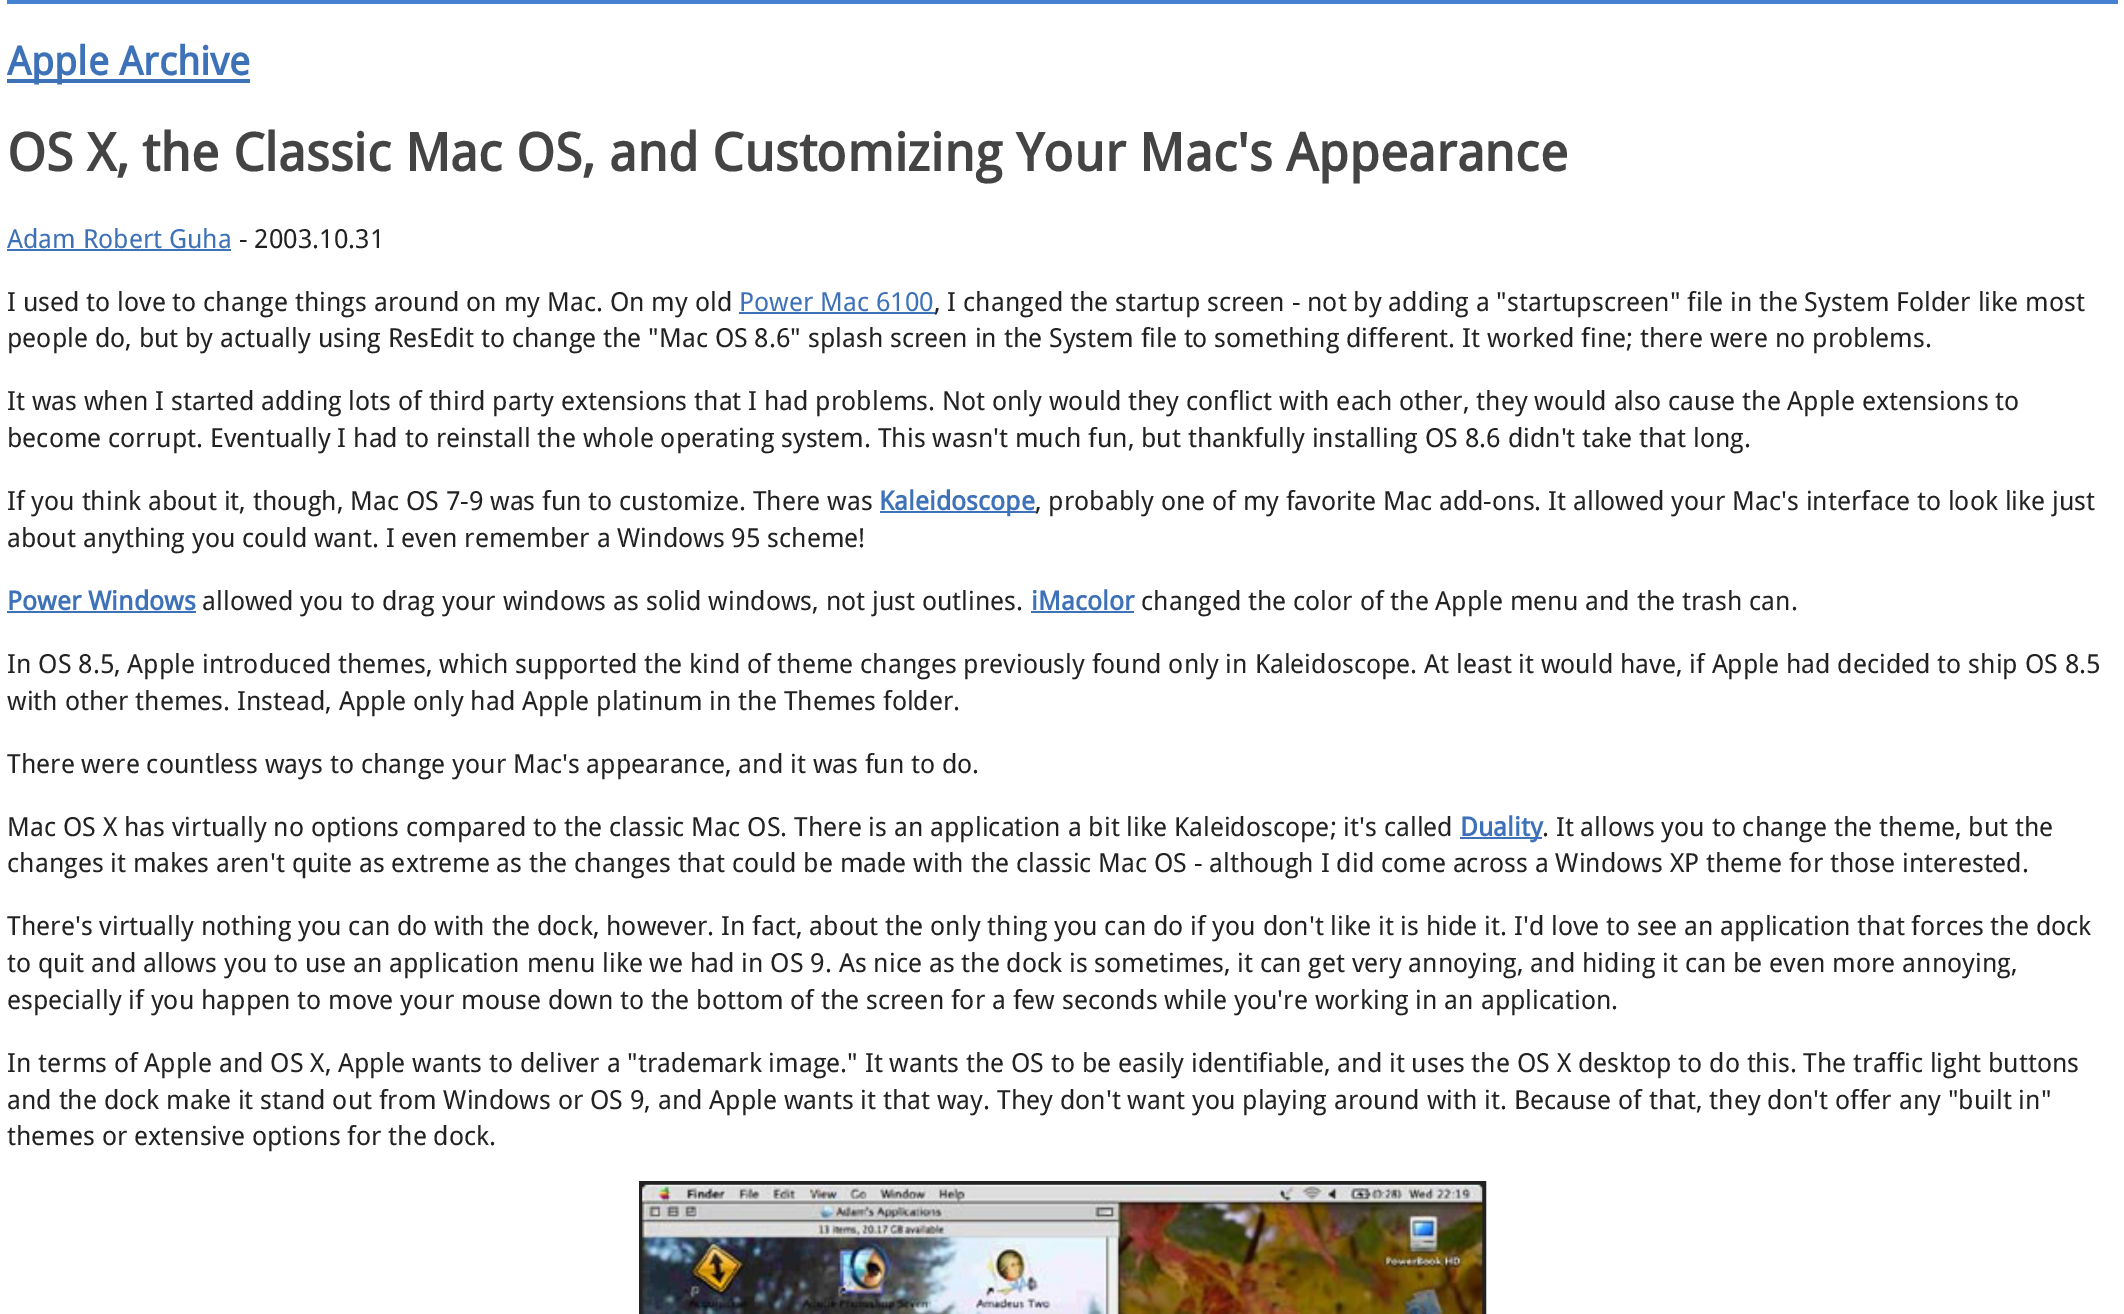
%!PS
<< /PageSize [2124 1314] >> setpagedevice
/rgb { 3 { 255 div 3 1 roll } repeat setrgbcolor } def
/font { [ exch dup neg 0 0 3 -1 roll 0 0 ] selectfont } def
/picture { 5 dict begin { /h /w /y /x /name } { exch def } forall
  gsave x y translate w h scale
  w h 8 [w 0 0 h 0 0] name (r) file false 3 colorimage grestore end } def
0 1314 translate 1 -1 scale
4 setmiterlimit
255 255 255 rgb
0 0 2124 1314 rectfill
[
  [7 0 2111 4 70 130 212]
  [7 79 243 4 61 113 184]
  [7 249 224 2 61 113 184]
  [739 312 196 2 61 113 184]
  [880 511 156 2 61 113 184]
  [7 611 189 2 61 113 184]
  [1031 611 103 2 61 113 184]
  [1460 837 82 2 61 113 184]
] { aload pop rgb rectfill } forall
34 34 34 rgb
4 setlinewidth
641 1183 843 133 rectstroke
(img/1.rgb) 642 1184 841 130 picture
/DroidSans-Bold 39.5 font
61 113 184 rgb
7 75 moveto (Apple Archive) show
/DroidSans-Bold 52.5 font
68 68 68 rgb
7 171 moveto (OS X, the Classic Mac OS, and Customizing Your Mac's Appearance) show
/DroidSans-Regular 26.25 font
61 113 184 rgb
7 248 moveto (Adam Robert Guha) show
34 34 34 rgb
239 248 moveto (- 2003.10.31) show
7 311 moveto (I used to love to change things around on my Mac. On my old) show
61 113 184 rgb
739 311 moveto (Power Mac 6100) show
34 34 34 rgb
[
  [(, I changed the startup screen - not by adding a "startupscreen" file in the System Folder like most) 934 311]
  [(people do, but by actually using ResEdit to change the "Mac OS 8.6" splash screen in the System file to something different. It worked fine; there were no problems.) 7 347]
  [(It was when I started adding lots of third party extensions that I had problems. Not only would they conflict with each other, they would also cause the Apple extensions to) 7 410]
  [(become corrupt. Eventually I had to reinstall the whole operating system. This wasn't much fun, but thankfully installing OS 8.6 didn't take that long.) 7 447]
  [(If you think about it, though, Mac OS 7-9 was fun to customize. There was) 7 510]
] { aload pop moveto show } forall
/DroidSans-Bold 26.25 font
61 113 184 rgb
879 510 moveto (Kaleidoscope) show
/DroidSans-Regular 26.25 font
34 34 34 rgb
1035 510 moveto (, probably one of my favorite Mac add-ons. It allowed your Mac's interface to look like just) show
7 547 moveto (about anything you could want. I even remember a Windows 95 scheme!) show
/DroidSans-Bold 26.25 font
61 113 184 rgb
7 610 moveto (Power Windows) show
/DroidSans-Regular 26.25 font
34 34 34 rgb
202 610 moveto (allowed you to drag your windows as solid windows, not just outlines.) show
/DroidSans-Bold 26.25 font
61 113 184 rgb
1031 610 moveto (iMacolor) show
/DroidSans-Regular 26.25 font
34 34 34 rgb
[
  [(changed the color of the Apple menu and the trash can.) 1141 610]
  [(In OS 8.5, Apple introduced themes, which supported the kind of theme changes previously found only in Kaleidoscope. At least it would have, if Apple had decided to ship OS 8.5) 7 673]
  [(with other themes. Instead, Apple only had Apple platinum in the Themes folder.) 7 710]
  [(There were countless ways to change your Mac's appearance, and it was fun to do.) 7 773]
  [(Mac OS X has virtually no options compared to the classic Mac OS. There is an application a bit like Kaleidoscope; it's called) 7 836]
] { aload pop moveto show } forall
/DroidSans-Bold 26.25 font
61 113 184 rgb
1460 836 moveto (Duality) show
/DroidSans-Regular 26.25 font
34 34 34 rgb
[
  [(. It allows you to change the theme, but the) 1542 836]
  [(changes it makes aren't quite as extreme as the changes that could be made with the classic Mac OS - although I did come across a Windows XP theme for those interested.) 7 872]
  [(There's virtually nothing you can do with the dock, however. In fact, about the only thing you can do if you don't like it is hide it. I'd love to see an application that forces the dock) 7 935]
  [(to quit and allows you to use an application menu like we had in OS 9. As nice as the dock is sometimes, it can get very annoying, and hiding it can be even more annoying,) 7 972]
  [(especially if you happen to move your mouse down to the bottom of the screen for a few seconds while you're working in an application.) 7 1009]
  [(In terms of Apple and OS X, Apple wants to deliver a "trademark image." It wants the OS to be easily identifiable, and it uses the OS X desktop to do this. The traffic light buttons) 7 1072]
  [(and the dock make it stand out from Windows or OS 9, and Apple wants it that way. They don't want you playing around with it. Because of that, they don't offer any "built in") 7 1109]
  [(themes or extensive options for the dock.) 7 1145]
] { aload pop moveto show } forall
showpage
